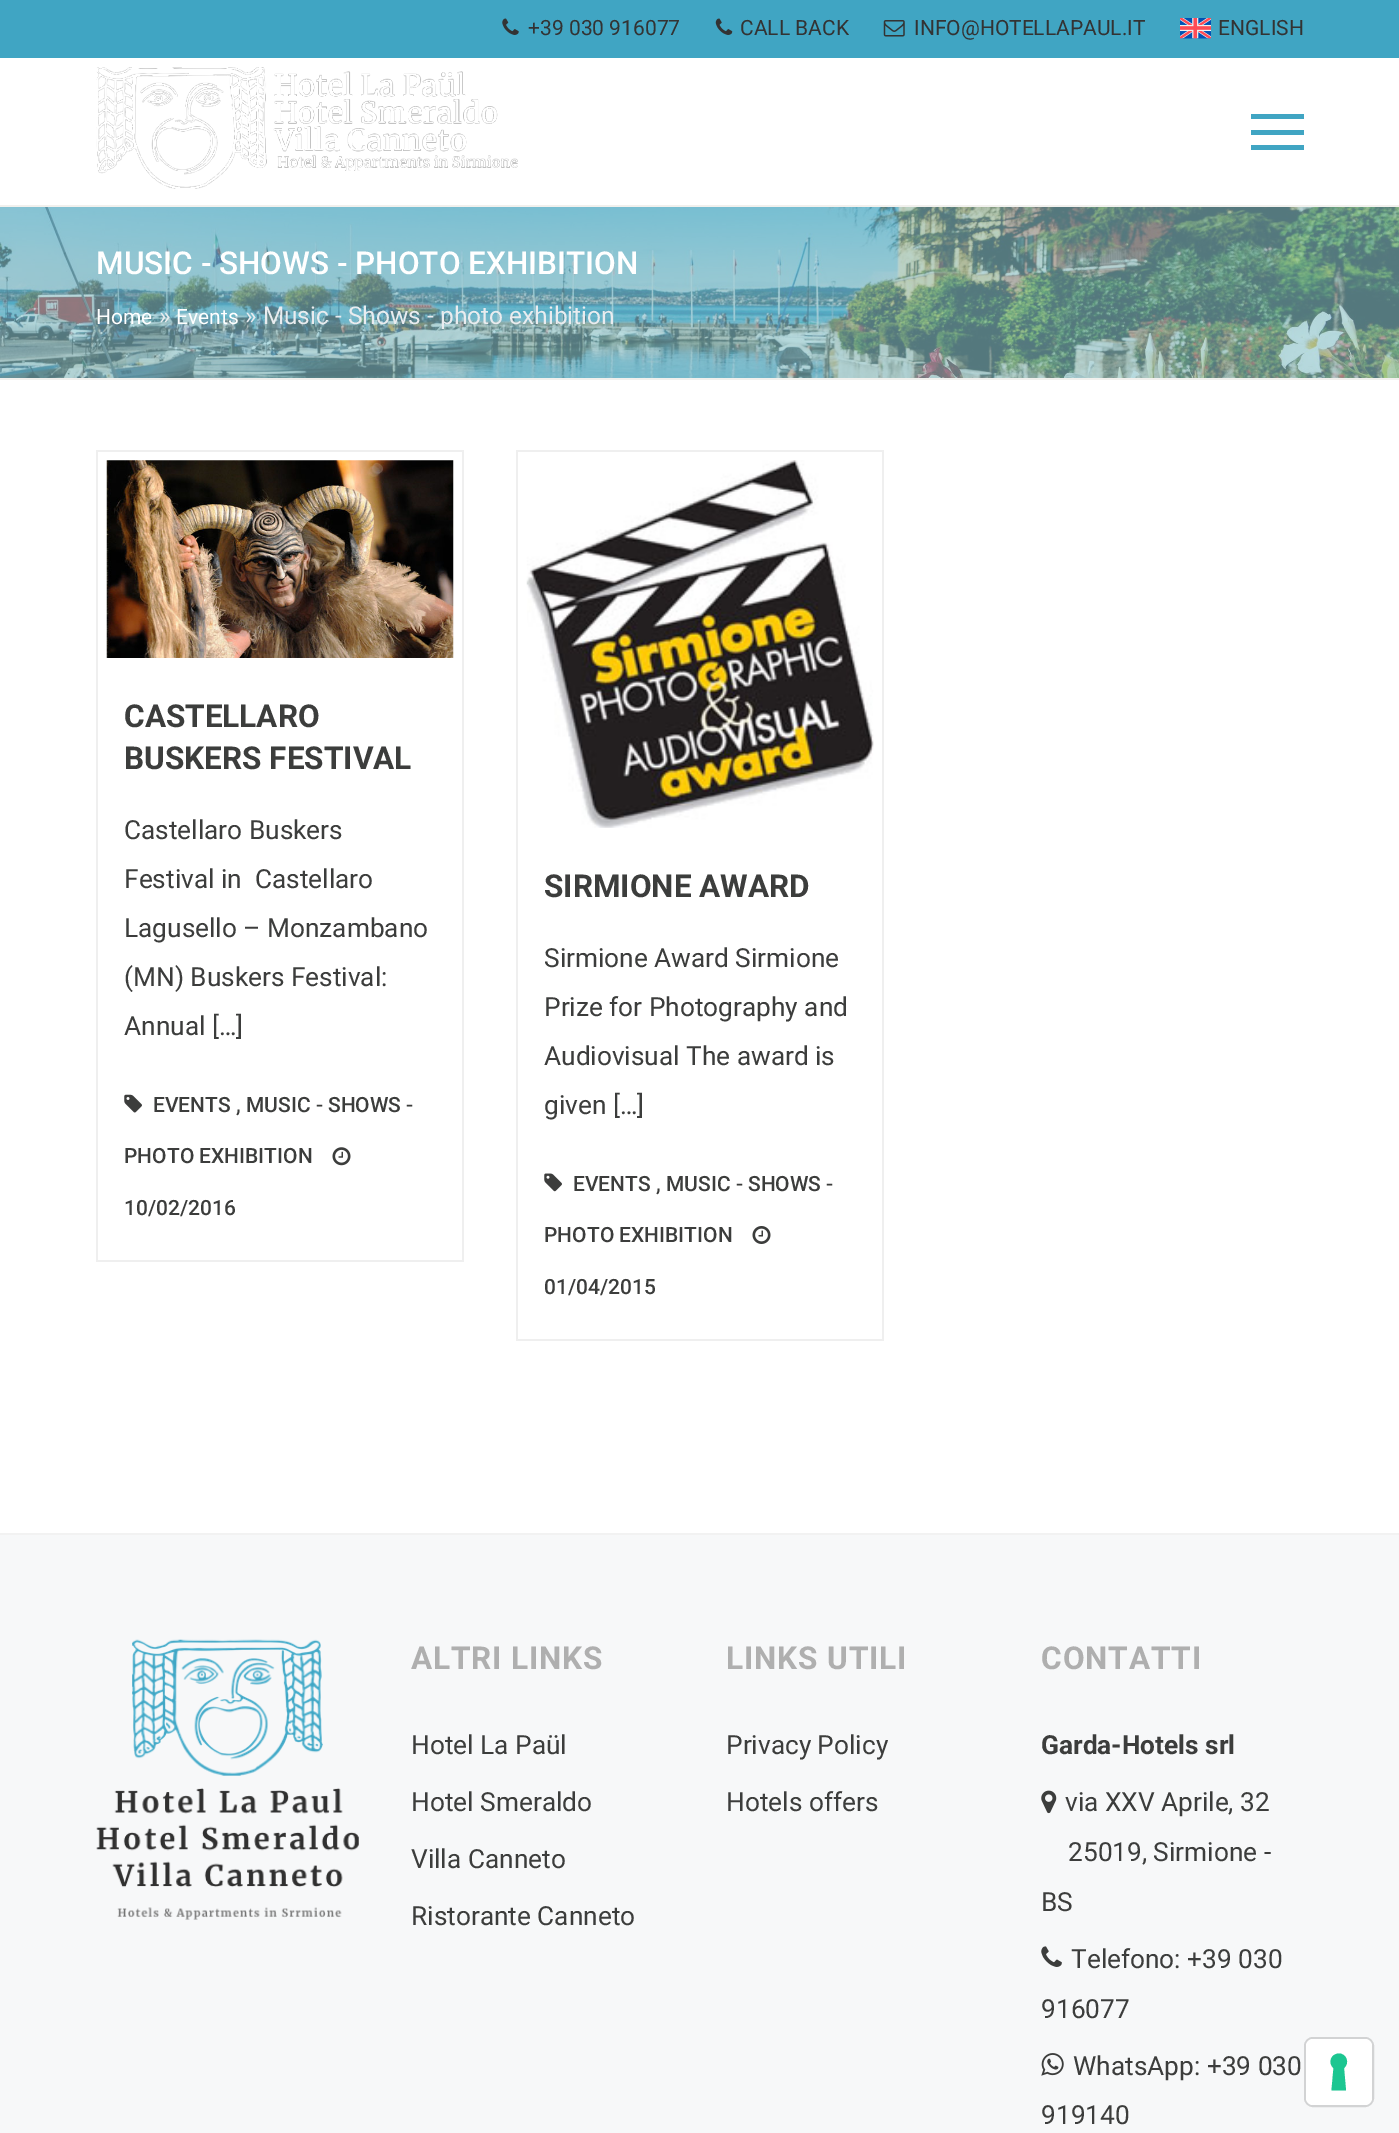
%!PS
<< /PageSize [1399 2133] >> setpagedevice
/rgb { 3 { 255 div 3 1 roll } repeat setrgbcolor } def
/font { [ exch dup neg 0 0 3 -1 roll 0 0 ] selectfont } def
/roundrect { 5 dict begin { /r /h /w /y /x } { exch def } forall
  x r add y moveto x w add y 2 copy h add r arct x w add y h add x 1 index r arct
  x y h add x y r arct x y 2 copy exch w add exch r arct closepath end } def
/picture { 5 dict begin { /h /w /y /x /name } { exch def } forall
  gsave x y translate w h scale
  w h 8 [w 0 0 h 0 0] name (r) file false 3 colorimage grestore end } def
0 2133 translate 1 -1 scale
4 setmiterlimit
255 255 255 rgb
0 0 1399 2133 rectfill
64 165 195 rgb
0 0 1399 58 rectfill
(img/1.rgb) 502 18 17 17 picture
(img/2.rgb) 715 18 18 17 picture
(img/3.rgb) 883 20 22 17 picture
(img/4.rgb) 1180 18 31 21 picture
(img/5.rgb) 96 67 422 122 picture
[
  [1251 114 53 5 64 165 195]
  [1251 130 53 5 64 165 195]
  [1251 145 53 5 64 165 195]
] { aload pop rgb rectfill } forall
(img/6.rgb) 0 207 1399 171 picture
[
  [0 205 1399 2 241 240 237]
  [0 378 1399 2 241 240 237]
  [96 450 368 2 239 239 239]
  [462 450 2 217 239 239 239]
  [96 450 2 217 239 239 239]
] { aload pop rgb rectfill } forall
(img/7.rgb) 106 460 348 198 picture
[
  [462 667 2 595 239 239 239]
  [96 1260 368 2 239 239 239]
  [96 667 2 595 239 239 239]
] { aload pop rgb rectfill } forall
(img/8.rgb) 124 1094 18 19 picture
(img/9.rgb) 332 1147 19 19 picture
[
  [516 450 368 2 239 239 239]
  [882 450 2 387 239 239 239]
  [516 450 2 387 239 239 239]
] { aload pop rgb rectfill } forall
(img/10.rgb) 526 460 348 368 picture
[
  [882 837 2 504 239 239 239]
  [516 1339 368 2 239 239 239]
  [516 837 2 504 239 239 239]
] { aload pop rgb rectfill } forall
(img/11.rgb) 544 1173 18 19 picture
(img/12.rgb) 752 1226 19 18 picture
247 248 249 rgb
0 1535 1399 598 rectfill
242 242 242 rgb
0 1533 1399 2 rectfill
(img/13.rgb) 96 1639 263 281 picture
(img/14.rgb) 1041 1790 16 24 picture
(img/15.rgb) 1041 1946 21 21 picture
(img/16.rgb) 1041 2053 23 23 picture
210 211 212 rgb
2 setlinewidth
1305 2038 68 68 8 roundrect stroke
255 255 255 rgb
1306 2039 66 66 7 roundrect fill
28 198 145 rgb
1339 2053.5 moveto 1346.5 2053.5 1350 2063 1344 2068 curveto 1346 2090.5 lineto 1331.5 2090.5 lineto 1333.5 2068 lineto 1327.5 2063 1331 2053.5 1339 2053.5 curveto closepath eofill
/Roboto-Regular 21 font
51 51 51 rgb
[
  [(+39 030 916077) 528 35]
  [(CALL BACK) 740 35]
  [(INFO@HOTELLAPAUL.IT) 914 35]
  [(ENGLISH) 1218 35]
] { aload pop moveto show } forall
/Roboto-Medium 31.5 font
255 255 255 rgb
96 274 moveto (MUSIC - SHOWS - PHOTO EXHIBITION) show
/Roboto-Regular 21 font
96 324 moveto (Home) show
/Roboto-Regular 24.5 font
233 236 239 rgb
159 324 moveto (») show
/Roboto-Regular 21 font
255 255 255 rgb
176 324 moveto (Events) show
/Roboto-Regular 24.5 font
233 236 239 rgb
245 324 moveto (» Music - Shows - photo exhibition) show
/Roboto-Bold 31.5 font
60 61 60 rgb
124 727 moveto (CASTELLARO) show
124 769 moveto (BUSKERS FESTIVAL) show
/Roboto-Regular 26.25 font
[
  [(Castellaro Buskers) 124 839]
  [(Festival in  Castellaro) 124 888]
  [(Lagusello – Monzambano) 124 937]
  [(\(MN\) Buskers Festival:) 124 986]
  [(Annual […]) 124 1035]
] { aload pop moveto show } forall
/Roboto-Medium 21 font
[
  [(EVENTS , MUSIC - SHOWS -) 153 1112]
  [(PHOTO EXHIBITION) 124 1163]
  [(10/02/2016) 124 1215]
] { aload pop moveto show } forall
/Roboto-Bold 31.5 font
544 897 moveto (SIRMIONE AWARD) show
/Roboto-Regular 26.25 font
[
  [(Sirmione Award Sirmione) 544 967]
  [(Prize for Photography and) 544 1016]
  [(Audiovisual The award is) 544 1065]
  [(given […]) 544 1114]
] { aload pop moveto show } forall
/Roboto-Medium 21 font
[
  [(EVENTS , MUSIC - SHOWS -) 573 1191]
  [(PHOTO EXHIBITION) 544 1242]
  [(01/04/2015) 544 1294]
] { aload pop moveto show } forall
/Roboto-Bold 31.5 font
175 175 175 rgb
411 1669 moveto 0.9 0 (ALTRI LINKS) ashow
/Roboto-Regular 26.25 font
60 61 60 rgb
[
  [(Hotel La Paül) 411 1754]
  [(Hotel Smeraldo) 411 1811]
  [(Villa Canneto) 411 1868]
  [(Ristorante Canneto) 411 1925]
] { aload pop moveto show } forall
/Roboto-Bold 31.5 font
175 175 175 rgb
726 1669 moveto 0.9 0 (LINKS UTILI) ashow
/Roboto-Regular 26.25 font
60 61 60 rgb
726 1754 moveto (Privacy Policy) show
726 1811 moveto (Hotels offers) show
/Roboto-Bold 31.5 font
175 175 175 rgb
1041 1669 moveto 0.9 0 (CONTATTI) ashow
/Roboto-Bold 26.25 font
60 61 60 rgb
1041 1754 moveto (Garda-Hotels srl) show
/Roboto-Regular 26.25 font
[
  [(via XXV Aprile, 32) 1065 1811]
  [(25019, Sirmione -) 1068 1861]
  [(BS) 1041 1911]
  [(Telefono: +39 030) 1071 1968]
  [(916077) 1041 2018]
  [(WhatsApp: +39 030) 1073 2075]
  [(919140) 1041 2124]
] { aload pop moveto show } forall
showpage
